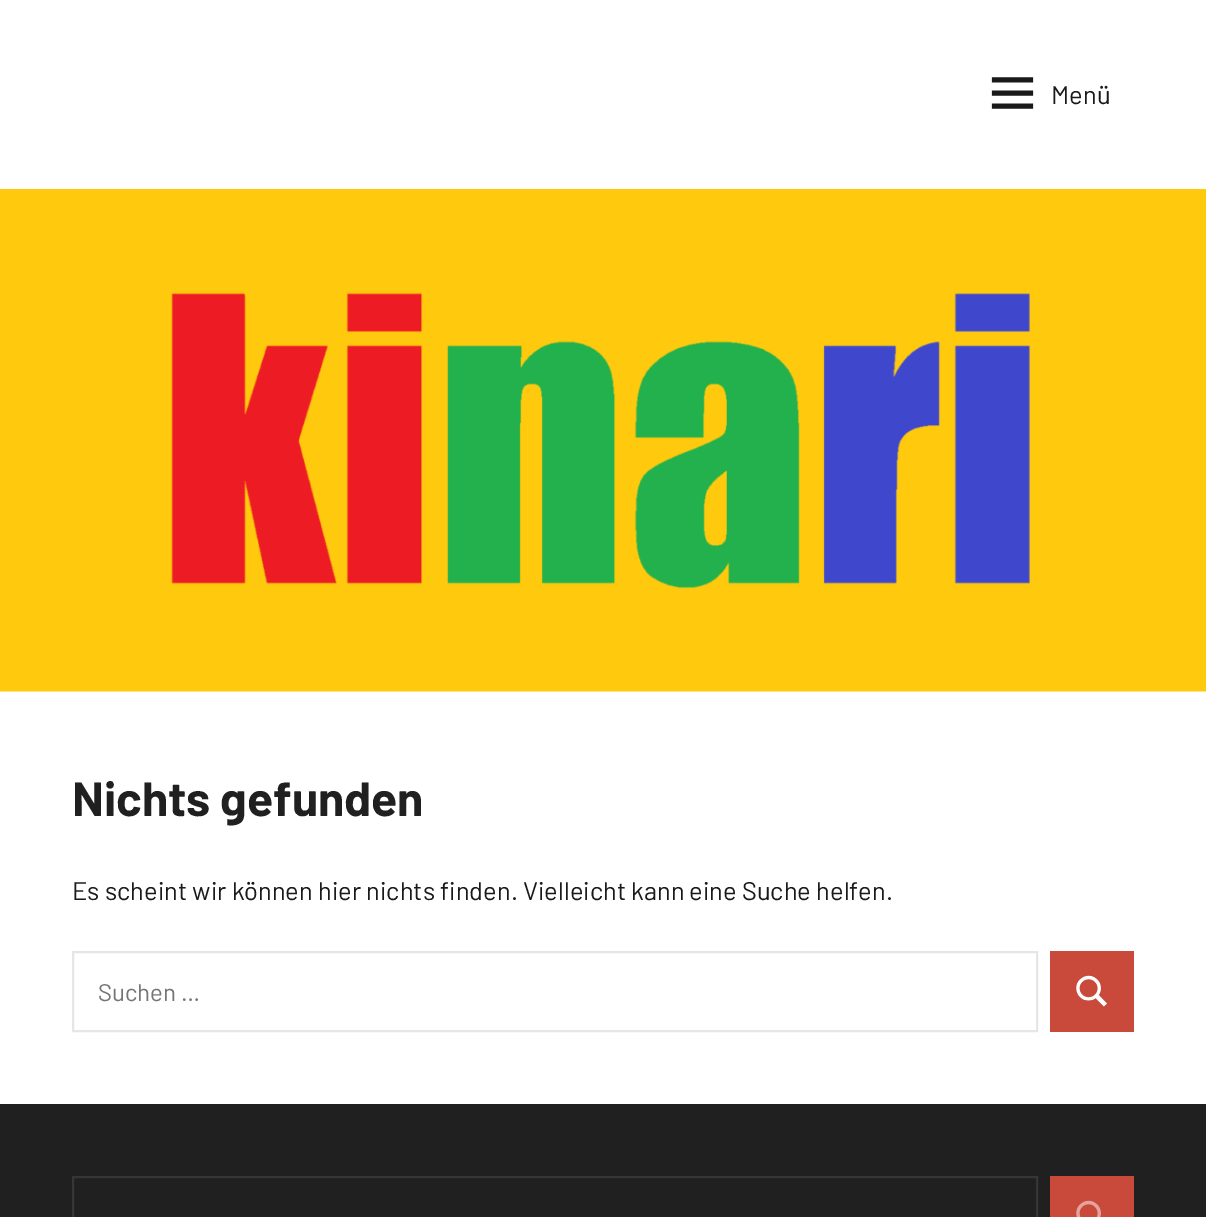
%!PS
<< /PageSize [1206 1217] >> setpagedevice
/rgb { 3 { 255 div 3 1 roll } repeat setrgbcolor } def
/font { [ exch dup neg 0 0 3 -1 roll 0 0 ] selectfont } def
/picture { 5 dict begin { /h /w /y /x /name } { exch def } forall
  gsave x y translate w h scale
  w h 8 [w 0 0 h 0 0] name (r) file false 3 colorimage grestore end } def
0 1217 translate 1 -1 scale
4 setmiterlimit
255 255 255 rgb
0 0 1206 1217 rectfill
(img/1.rgb) 991 77 43 32 picture
(img/2.rgb) 0 189 1206 503 picture
230 230 230 rgb
2 setlinewidth
73 952 964 79 rectstroke
201 73 59 rgb
1050 951 84 81 rectfill
(img/3.rgb) 1076 975 31 32 picture
32 32 32 rgb
0 1104 1206 113 rectfill
54 54 54 rgb
73 1177 964 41 rectstroke
201 73 59 rgb
1050 1176 84 41 rectfill
(img/4.rgb) 1076 1200 25 17 picture
/Barlow-Regular 25.5 font
26 26 26 rgb
1051 104 moveto (Menü) show
/Barlow-Bold 48 font
32 32 32 rgb
72 816 moveto (Nichts gefunden) show
/Barlow-Regular 25.5 font
26 26 26 rgb
72 900 moveto (Es scheint wir können hier nichts finden. Vielleicht kann eine Suche helfen.) show
/Barlow-Regular 24 font
117 117 117 rgb
98 1001 moveto (Suchen …) show
showpage
